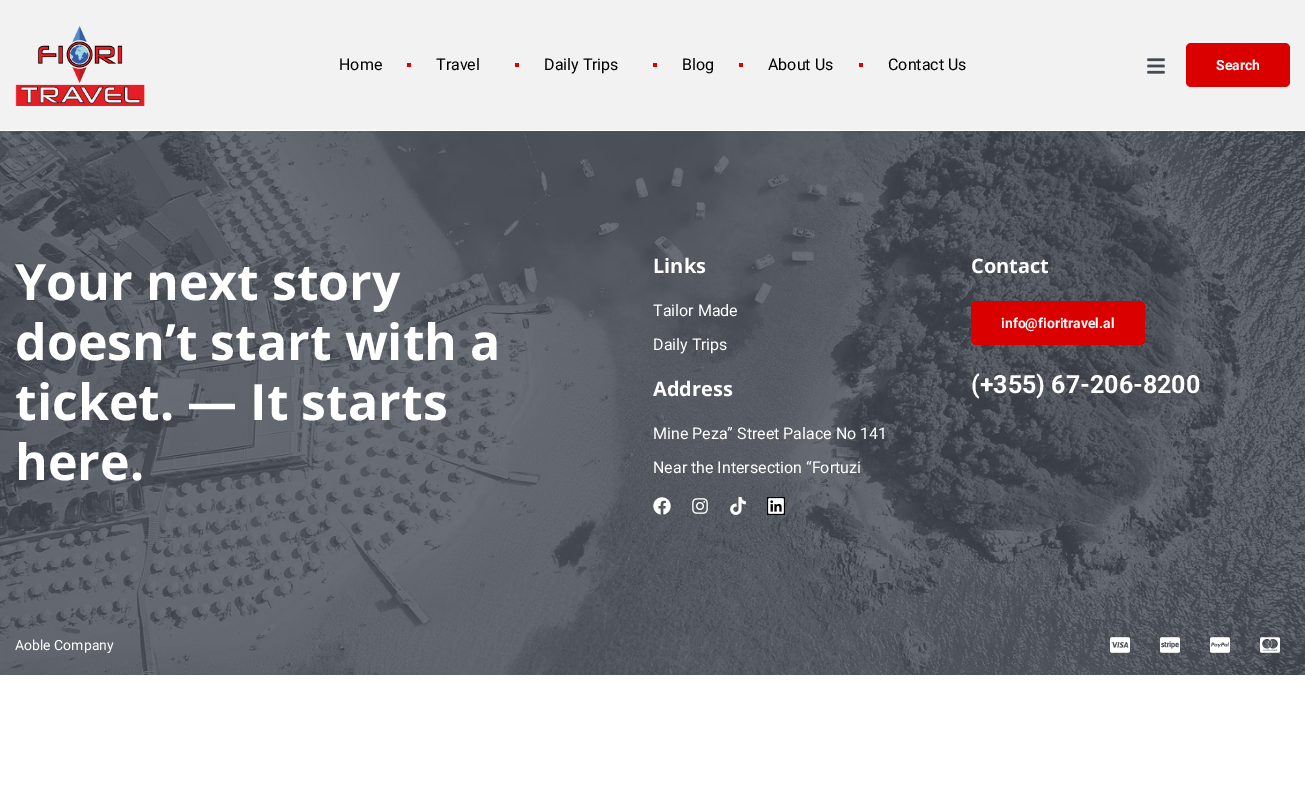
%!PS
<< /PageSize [1305 788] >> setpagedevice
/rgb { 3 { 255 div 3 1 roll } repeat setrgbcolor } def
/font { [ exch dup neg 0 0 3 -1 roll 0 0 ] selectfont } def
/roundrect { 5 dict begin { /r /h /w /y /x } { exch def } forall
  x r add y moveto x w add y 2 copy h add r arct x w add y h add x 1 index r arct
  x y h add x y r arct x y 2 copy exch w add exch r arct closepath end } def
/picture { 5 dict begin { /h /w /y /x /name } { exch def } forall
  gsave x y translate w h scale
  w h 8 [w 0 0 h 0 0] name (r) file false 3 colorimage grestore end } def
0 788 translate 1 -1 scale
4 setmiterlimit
255 255 255 rgb
0 0 1305 788 rectfill
242 242 242 rgb
0 0 1305 130 rectfill
(img/1.rgb) 15 26 130 80 picture
[
  [407 63 4 4 219 0 0]
  [515 63 4 4 219 0 0]
  [653 63 4 4 219 0 0]
  [739 63 4 4 219 0 0]
  [859 63 4 4 219 0 0]
] { aload pop rgb rectfill } forall
(img/2.rgb) 1147 58 18 16 picture
1186 43 104 44 5 roundrect fill
67 74 84 rgb
0 131 1305 544 rectfill
(img/3.rgb) 0 131 1305 544 picture
(img/4.rgb) 653 497 18 18 picture
(img/5.rgb) 692 498 16 16 picture
(img/6.rgb) 730 497 16 18 picture
0 0 0 rgb
767 497 18 18 rectfill
(img/7.rgb) 768 498 16 16 picture
219 0 0 rgb
971 301 174 44 5 roundrect fill
(img/8.rgb) 1110 637 20 16 picture
(img/9.rgb) 1160 637 20 16 picture
(img/10.rgb) 1210 637 20 16 picture
(img/11.rgb) 1260 637 20 16 picture
/Roboto-Regular 16 font
0 0 0 rgb
[
  [(Home) 339 70]
  [(Travel) 436 70]
  [(Daily Trips) 544 70]
  [(Blog) 682 70]
  [(About Us) 768 70]
  [(Contact Us) 888 70]
] { aload pop moveto show } forall
/Roboto-Bold 14 font
255 255 255 rgb
1216 70 moveto (Search) show
/OpenSans-Bold 50 font
[
  [(Your next story) 15 300]
  [(doesn’t start with a) 15 360]
  [(ticket. — It starts) 15 420]
  [(here.) 15 480]
] { aload pop moveto show } forall
/OpenSans-Bold 20 font
653 273 moveto (Links) show
/Roboto-Regular 16 font
653 316 moveto (Tailor Made) show
653 350 moveto (Daily Trips) show
/OpenSans-Bold 20 font
653 396 moveto (Address) show
/Roboto-Regular 16 font
653 439 moveto (Mine Peza” Street Palace No 141) show
653 473 moveto (Near the Intersection “Fortuzi) show
/OpenSans-Bold 20 font
971 273 moveto (Contact) show
/Roboto-Bold 14 font
1001 328 moveto (info@fioritravel.al) show
/Roboto-Bold 25 font
971 393 moveto (\(+355\) 67-206-8200) show
/Roboto-Regular 14 font
15 650 moveto (Aoble Company) show
showpage
